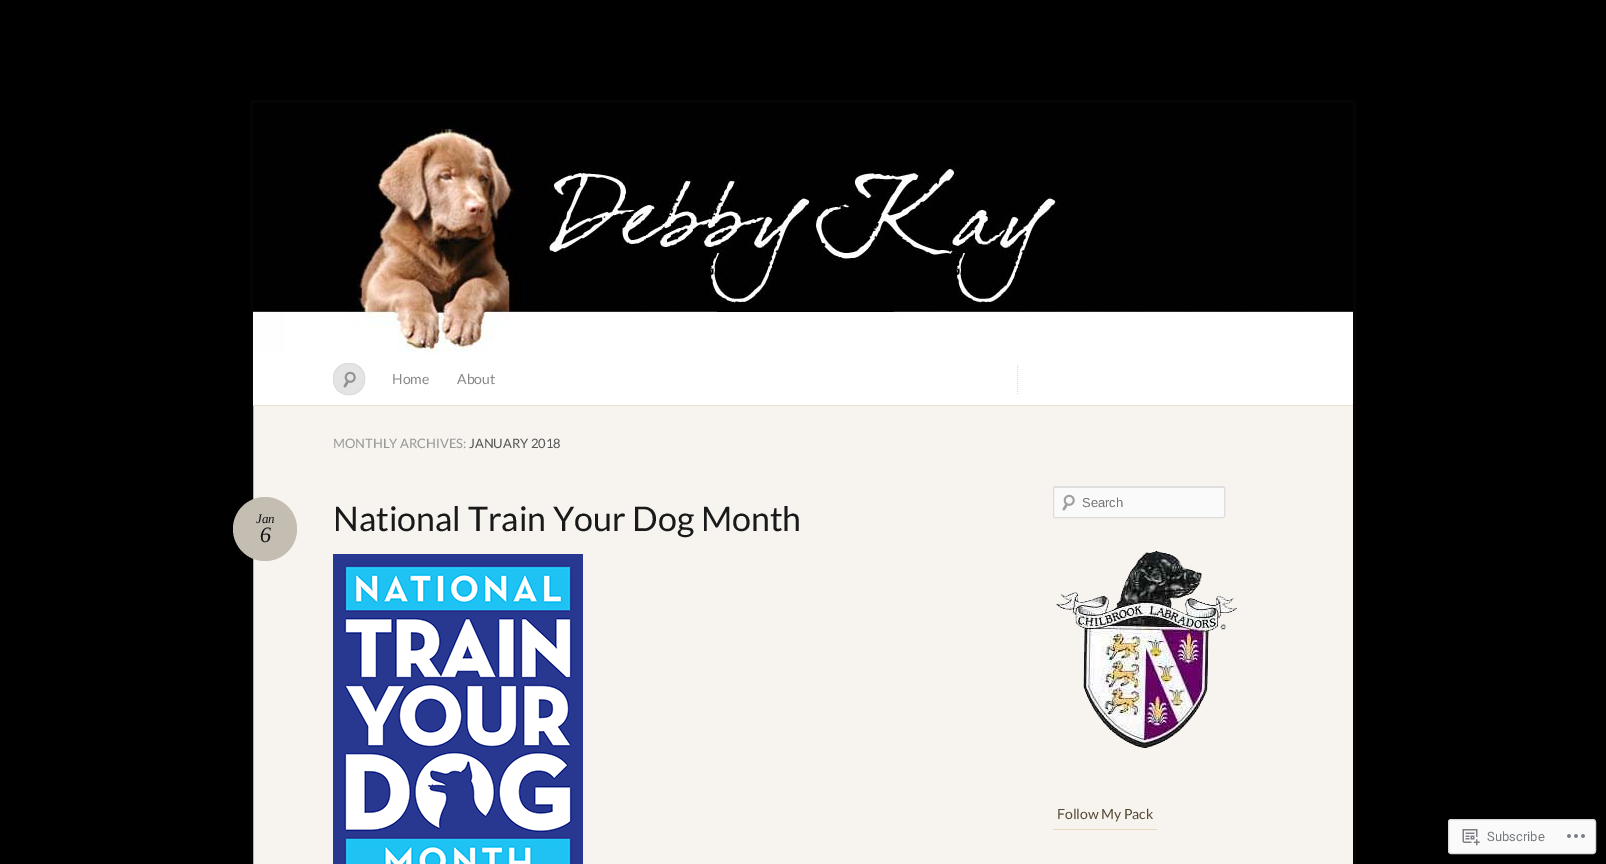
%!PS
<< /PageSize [1606 864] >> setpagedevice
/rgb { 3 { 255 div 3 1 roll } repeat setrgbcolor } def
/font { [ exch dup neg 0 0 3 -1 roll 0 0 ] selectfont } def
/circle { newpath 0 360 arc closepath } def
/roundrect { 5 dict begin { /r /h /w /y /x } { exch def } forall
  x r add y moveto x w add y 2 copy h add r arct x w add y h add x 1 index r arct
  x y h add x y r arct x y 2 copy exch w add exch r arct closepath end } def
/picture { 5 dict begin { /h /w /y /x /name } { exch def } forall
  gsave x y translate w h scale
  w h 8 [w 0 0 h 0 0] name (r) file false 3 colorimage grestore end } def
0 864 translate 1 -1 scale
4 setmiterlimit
0 0 0 rgb
0 0 1606 864 rectfill
247 243 238 rgb
251.5 101.5 1103 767 1.5 roundrect gsave fill grestore
5 5 5 rgb
3 setlinewidth
stroke
(img/1.rgb) 253 103 1100 250 picture
255 255 255 rgb
253 353 1100 52 rectfill
233 224 209 rgb
253 405 1100 1 rectfill
228 228 228 rgb
333 363 32 32 15 roundrect fill
(img/2.rgb) 343 371 13 17 picture
221 221 221 rgb
1 setlinewidth
333.5 363.5 31 31 14.5 roundrect stroke
[1 1] 0 setdash
1017.5 365 moveto 1017.5 395 lineto stroke
196 189 178 rgb
265 529 32 circle fill
(img/3.rgb) 333 554 250 310 picture
250 250 250 rgb
1053 486 172 32 2 roundrect fill
(img/4.rgb) 1062 494 13 17 picture
225 225 225 rgb
1055 488 moveto 1223 488 lineto 1224 488 1224 488 1224 489 curveto 1224 487 lineto 1055 487 lineto 1054 487 1054 488 1054 489 curveto 1054 488 1054 488 1055 488 curveto closepath fill
221 221 221 rgb
[] 0 setdash
1053.5 486.5 171 31 1.5 roundrect stroke
(img/5.rgb) 1056 551 181 197 picture
231 217 185 rgb
1053 829 104 1 rectfill
250 250 250 rgb
1448.5 819.5 147 34 2.5 roundrect gsave fill grestore
216 216 218 rgb
stroke
(img/6.rgb) 1462 829 18 17 picture
(img/7.rgb) 1567 834 18 4 picture
/Lato-Regular 14 font
136 136 136 rgb
392 384 moveto (Home) show
457 384 moveto (About) show
/Lato-Regular 13 font
153 153 153 rgb
333 448 moveto (MONTHLY ARCHIVES:) show
85 85 85 rgb
469 448 moveto (JANUARY 2018) show
/LiberationSerif-Italic 13 font
17 17 17 rgb
256 523 moveto (Jan) show
/LiberationSerif-Italic 22 font
260 542 moveto (6) show
/Lato-Regular 34 font
25 25 25 rgb
333 531 moveto (National Train Your Dog Month) show
/LiberationSans-Regular 13 font
117 117 117 rgb
1082 507 moveto (Search) show
/Lato-Regular 14 font
85 75 52 rgb
1057 819 moveto (Follow My Pack) show
/Roboto-Regular 13 font
118 122 127 rgb
1487 841 moveto (Subscribe) show
showpage
